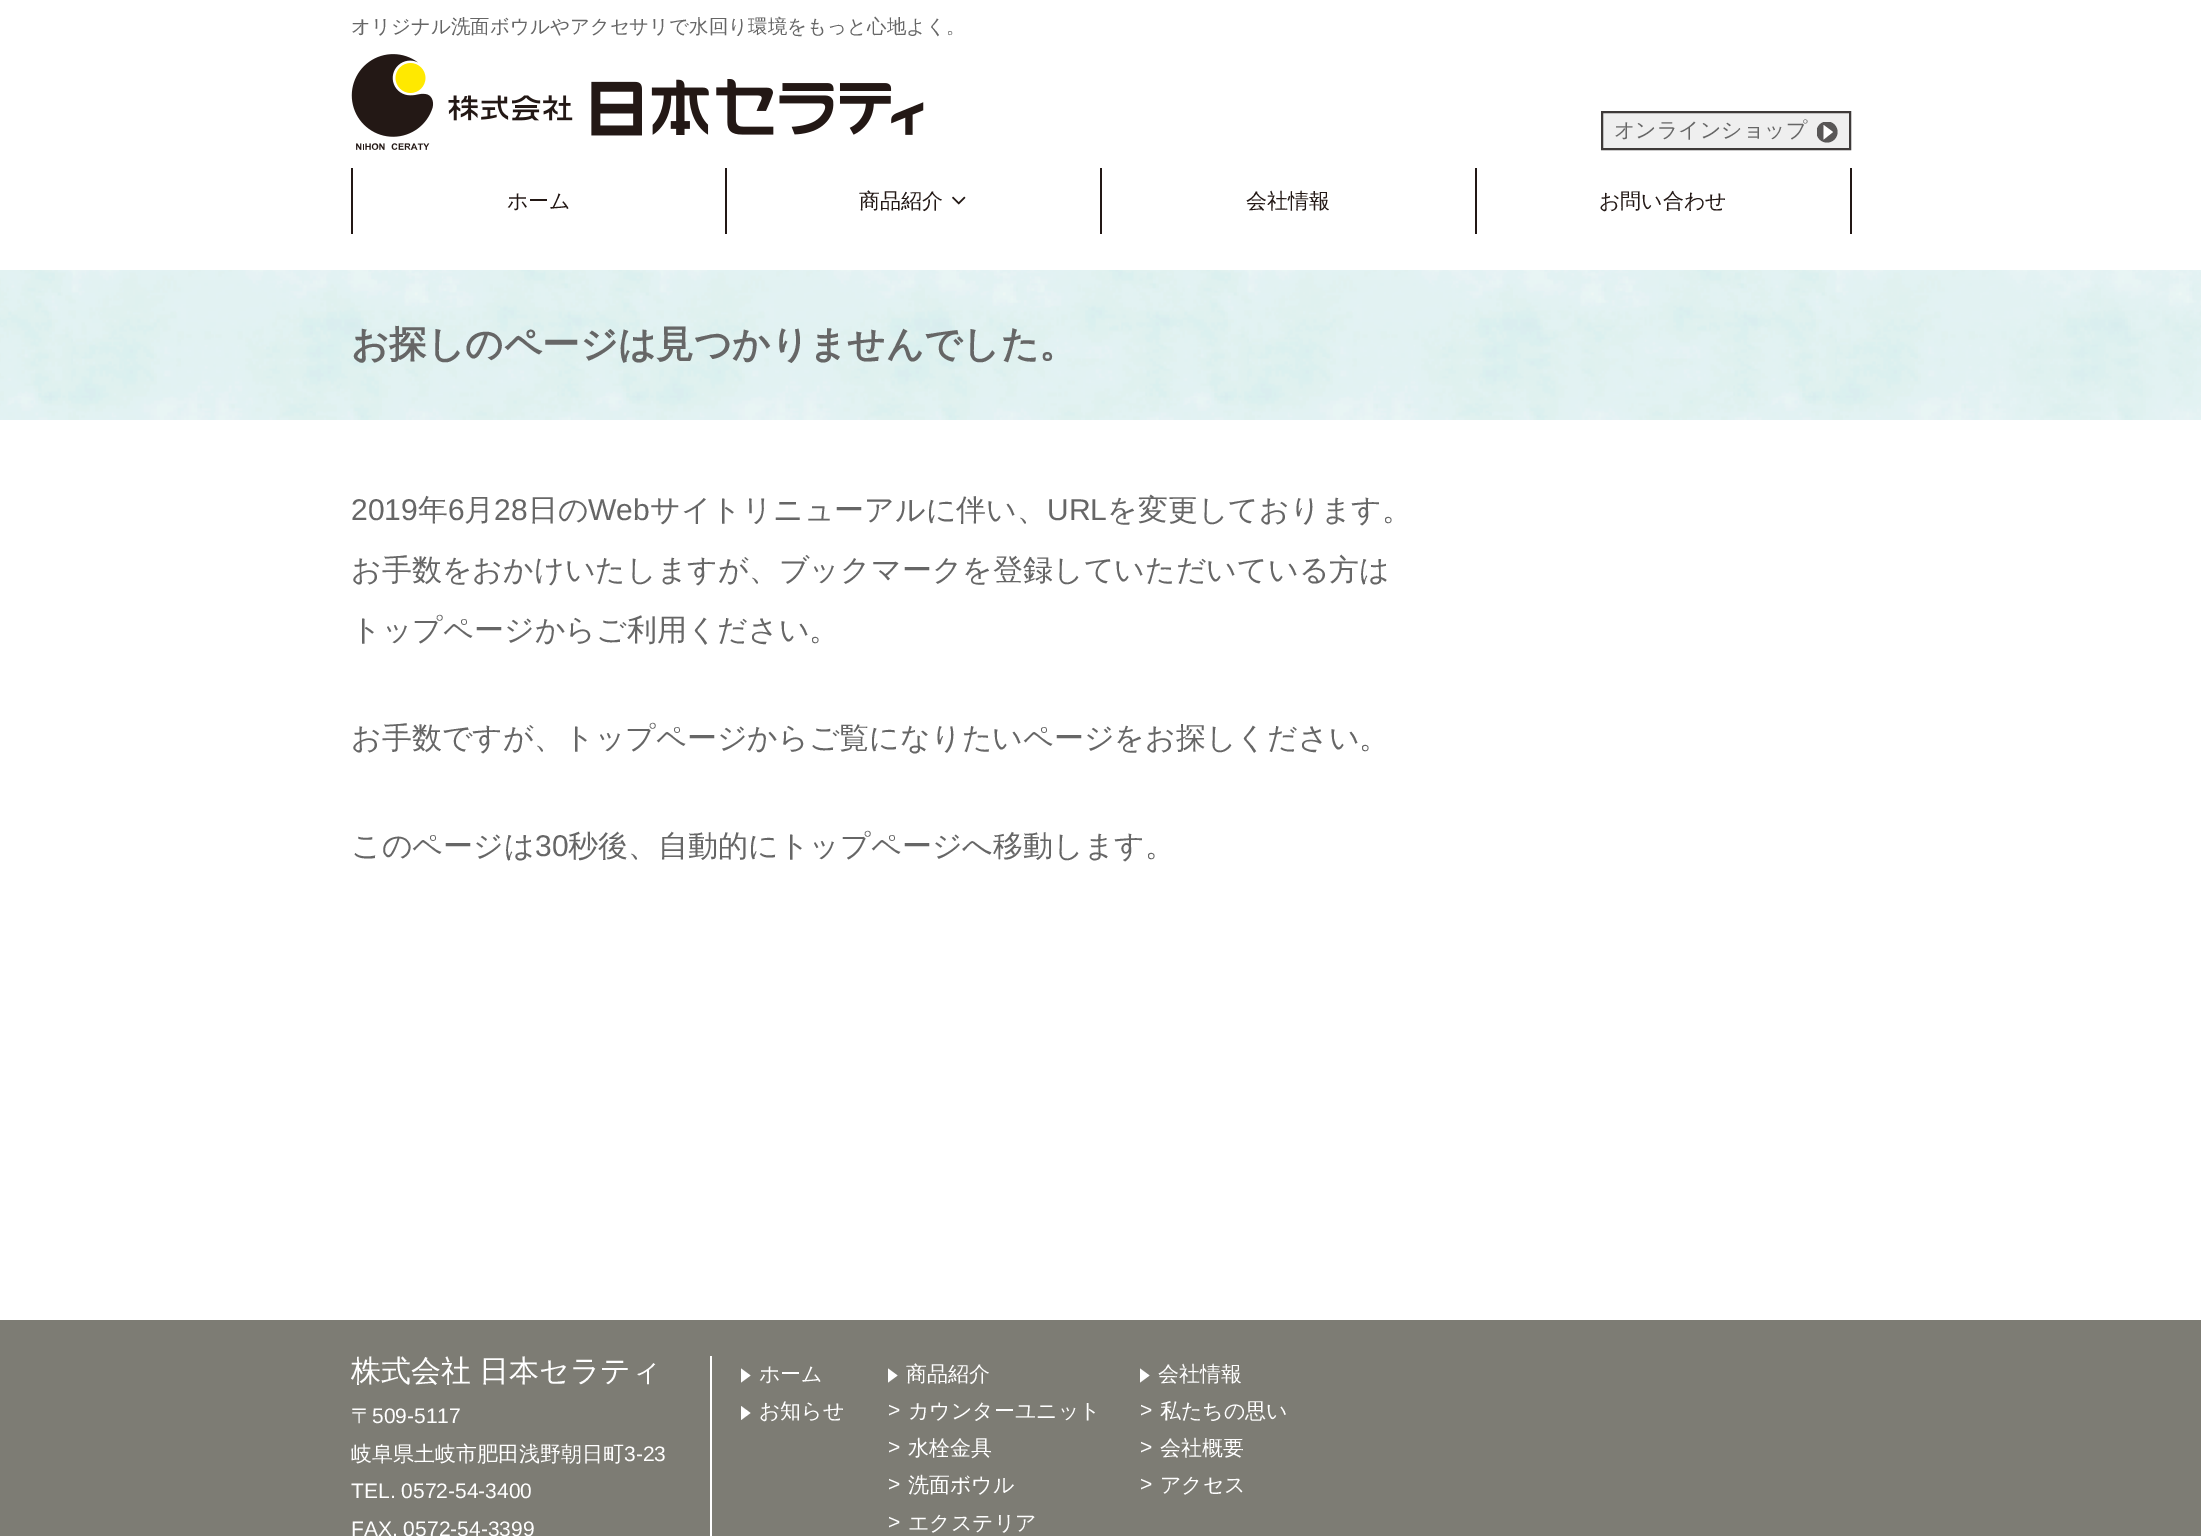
%!PS
<< /PageSize [2201 1536] >> setpagedevice
/rgb { 3 { 255 div 3 1 roll } repeat setrgbcolor } def
/font { [ exch dup neg 0 0 3 -1 roll 0 0 ] selectfont } def
/circle { newpath 0 360 arc closepath } def
/picture { 5 dict begin { /h /w /y /x /name } { exch def } forall
  gsave x y translate w h scale
  w h 8 [w 0 0 h 0 0] name (r) file false 3 colorimage grestore end } def
0 1536 translate 1 -1 scale
4 setmiterlimit
255 255 255 rgb
0 0 2201 1536 rectfill
(img/1.rgb) 351 54 573 96 picture
239 239 239 rgb
1602 112 moveto 1850 112 lineto 1850 149 lineto 1602 149 lineto closepath gsave fill grestore
62 58 57 rgb
2 setlinewidth
stroke
gsave
1817 122 21 21 rectclip
89 87 87 rgb
1827 132 10.5 circle fill
grestore
255 255 255 rgb
1823.5 125 moveto 1833 132 lineto 1823.5 139.5 lineto closepath fill
[
  [725 168 2 66 35 24 21]
  [351 168 2 66 35 24 21]
  [1100 168 2 66 35 24 21]
] { aload pop rgb rectfill } forall
(img/2.rgb) 952 196 14 9 picture
1475 168 2 66 rectfill
1850 168 2 66 rectfill
(img/3.rgb) 0 270 2201 150 picture
125 124 116 rgb
0 1320 2201 216 rectfill
255 255 255 rgb
710 1356 2 180 rectfill
741 1368.5 moveto 750.5 1375.5 lineto 741 1382.5 lineto closepath fill
741 1406 moveto 750.5 1413 lineto 741 1420 lineto closepath fill
888 1368.5 moveto 897.5 1375.5 lineto 888 1382.5 lineto closepath fill
1140 1368.5 moveto 1149.5 1375.5 lineto 1140 1382.5 lineto closepath fill
/WenQuanYiZenHei-Medium 19.5 font
102 102 102 rgb
351 33 moveto (オリジナル洗面ボウルやアクセサリで水回り環境をもっと心地よく。) show
/WenQuanYiZenHei-Medium 21 font
1614 137 moveto (オンラインショップ) show
35 24 21 rgb
[
  [(ホーム) 507 208]
  [(商品紹介) 859 208]
  [(会社情報) 1246 208]
  [(お問い合わせ) 1599 208]
] { aload pop moveto show } forall
/WenQuanYiZenHei-Bold 37.5 font
102 102 102 rgb
351 357 moveto (お探しのページは見つかりませんでした。) show
/LiberationSans-Regular 30 font
351 520 moveto (2019) show
/WenQuanYiZenHei-Medium 30 font
418 520 moveto (年) show
/LiberationSans-Regular 30 font
448 520 moveto (6) show
/WenQuanYiZenHei-Medium 30 font
464 520 moveto (月) show
/LiberationSans-Regular 30 font
494 520 moveto (28) show
/WenQuanYiZenHei-Medium 30 font
528 520 moveto (日の) show
/LiberationSans-Regular 30 font
588 520 moveto (Web) show
/WenQuanYiZenHei-Medium 30 font
650 520 moveto (サイトリニューアルに伴い、) show
/LiberationSans-Regular 30 font
1047 520 moveto (URL) show
/WenQuanYiZenHei-Medium 30 font
[
  [(を変更しております。) 1107 520]
  [(お手数をおかけいたしますが、ブックマークを登録していただいている方は) 351 580]
  [(トップページからご利用ください。) 351 640]
  [(お手数ですが、トップページからご覧になりたいページをお探しください。) 351 748]
  [(このページは) 351 856]
] { aload pop moveto show } forall
/LiberationSans-Regular 30 font
535 856 moveto (30) show
/WenQuanYiZenHei-Medium 30 font
568 856 moveto (秒後、自動的にトップページへ移動します。) show
255 255 255 rgb
351 1381 moveto (株式会社) show
479 1381 moveto (日本セラティ) show
/WenQuanYiZenHei-Medium 21 font
351 1423 moveto (〒) show
/LiberationSans-Regular 21 font
372 1423 moveto (509-5117) show
/WenQuanYiZenHei-Medium 21 font
351 1461 moveto (岐阜県土岐市肥田浅野朝日町) show
/LiberationSans-Regular 21 font
[
  [(3-23) 624 1461]
  [(TEL. 0572-54-3400) 351 1498]
  [(FAX. 0572-54-3399) 351 1536]
] { aload pop moveto show } forall
/WenQuanYiZenHei-Medium 21 font
[
  [(ホーム) 759 1381]
  [(お知らせ) 759 1418]
  [(商品紹介) 906 1381]
] { aload pop moveto show } forall
/LiberationSans-Regular 21 font
888 1417 moveto (>) show
/WenQuanYiZenHei-Medium 21 font
908 1418 moveto (カウンターユニット) show
/LiberationSans-Regular 21 font
888 1454 moveto (>) show
/WenQuanYiZenHei-Medium 21 font
908 1455 moveto (水栓金具) show
/LiberationSans-Regular 21 font
888 1491 moveto (>) show
/WenQuanYiZenHei-Medium 21 font
908 1492 moveto (洗面ボウル) show
/LiberationSans-Regular 21 font
888 1529 moveto (>) show
/WenQuanYiZenHei-Medium 21 font
908 1530 moveto (エクステリア) show
1158 1381 moveto (会社情報) show
/LiberationSans-Regular 21 font
1140 1417 moveto (>) show
/WenQuanYiZenHei-Medium 21 font
1160 1418 moveto (私たちの思い) show
/LiberationSans-Regular 21 font
1140 1454 moveto (>) show
/WenQuanYiZenHei-Medium 21 font
1160 1455 moveto (会社概要) show
/LiberationSans-Regular 21 font
1140 1491 moveto (>) show
/WenQuanYiZenHei-Medium 21 font
1160 1492 moveto (アクセス) show
showpage
